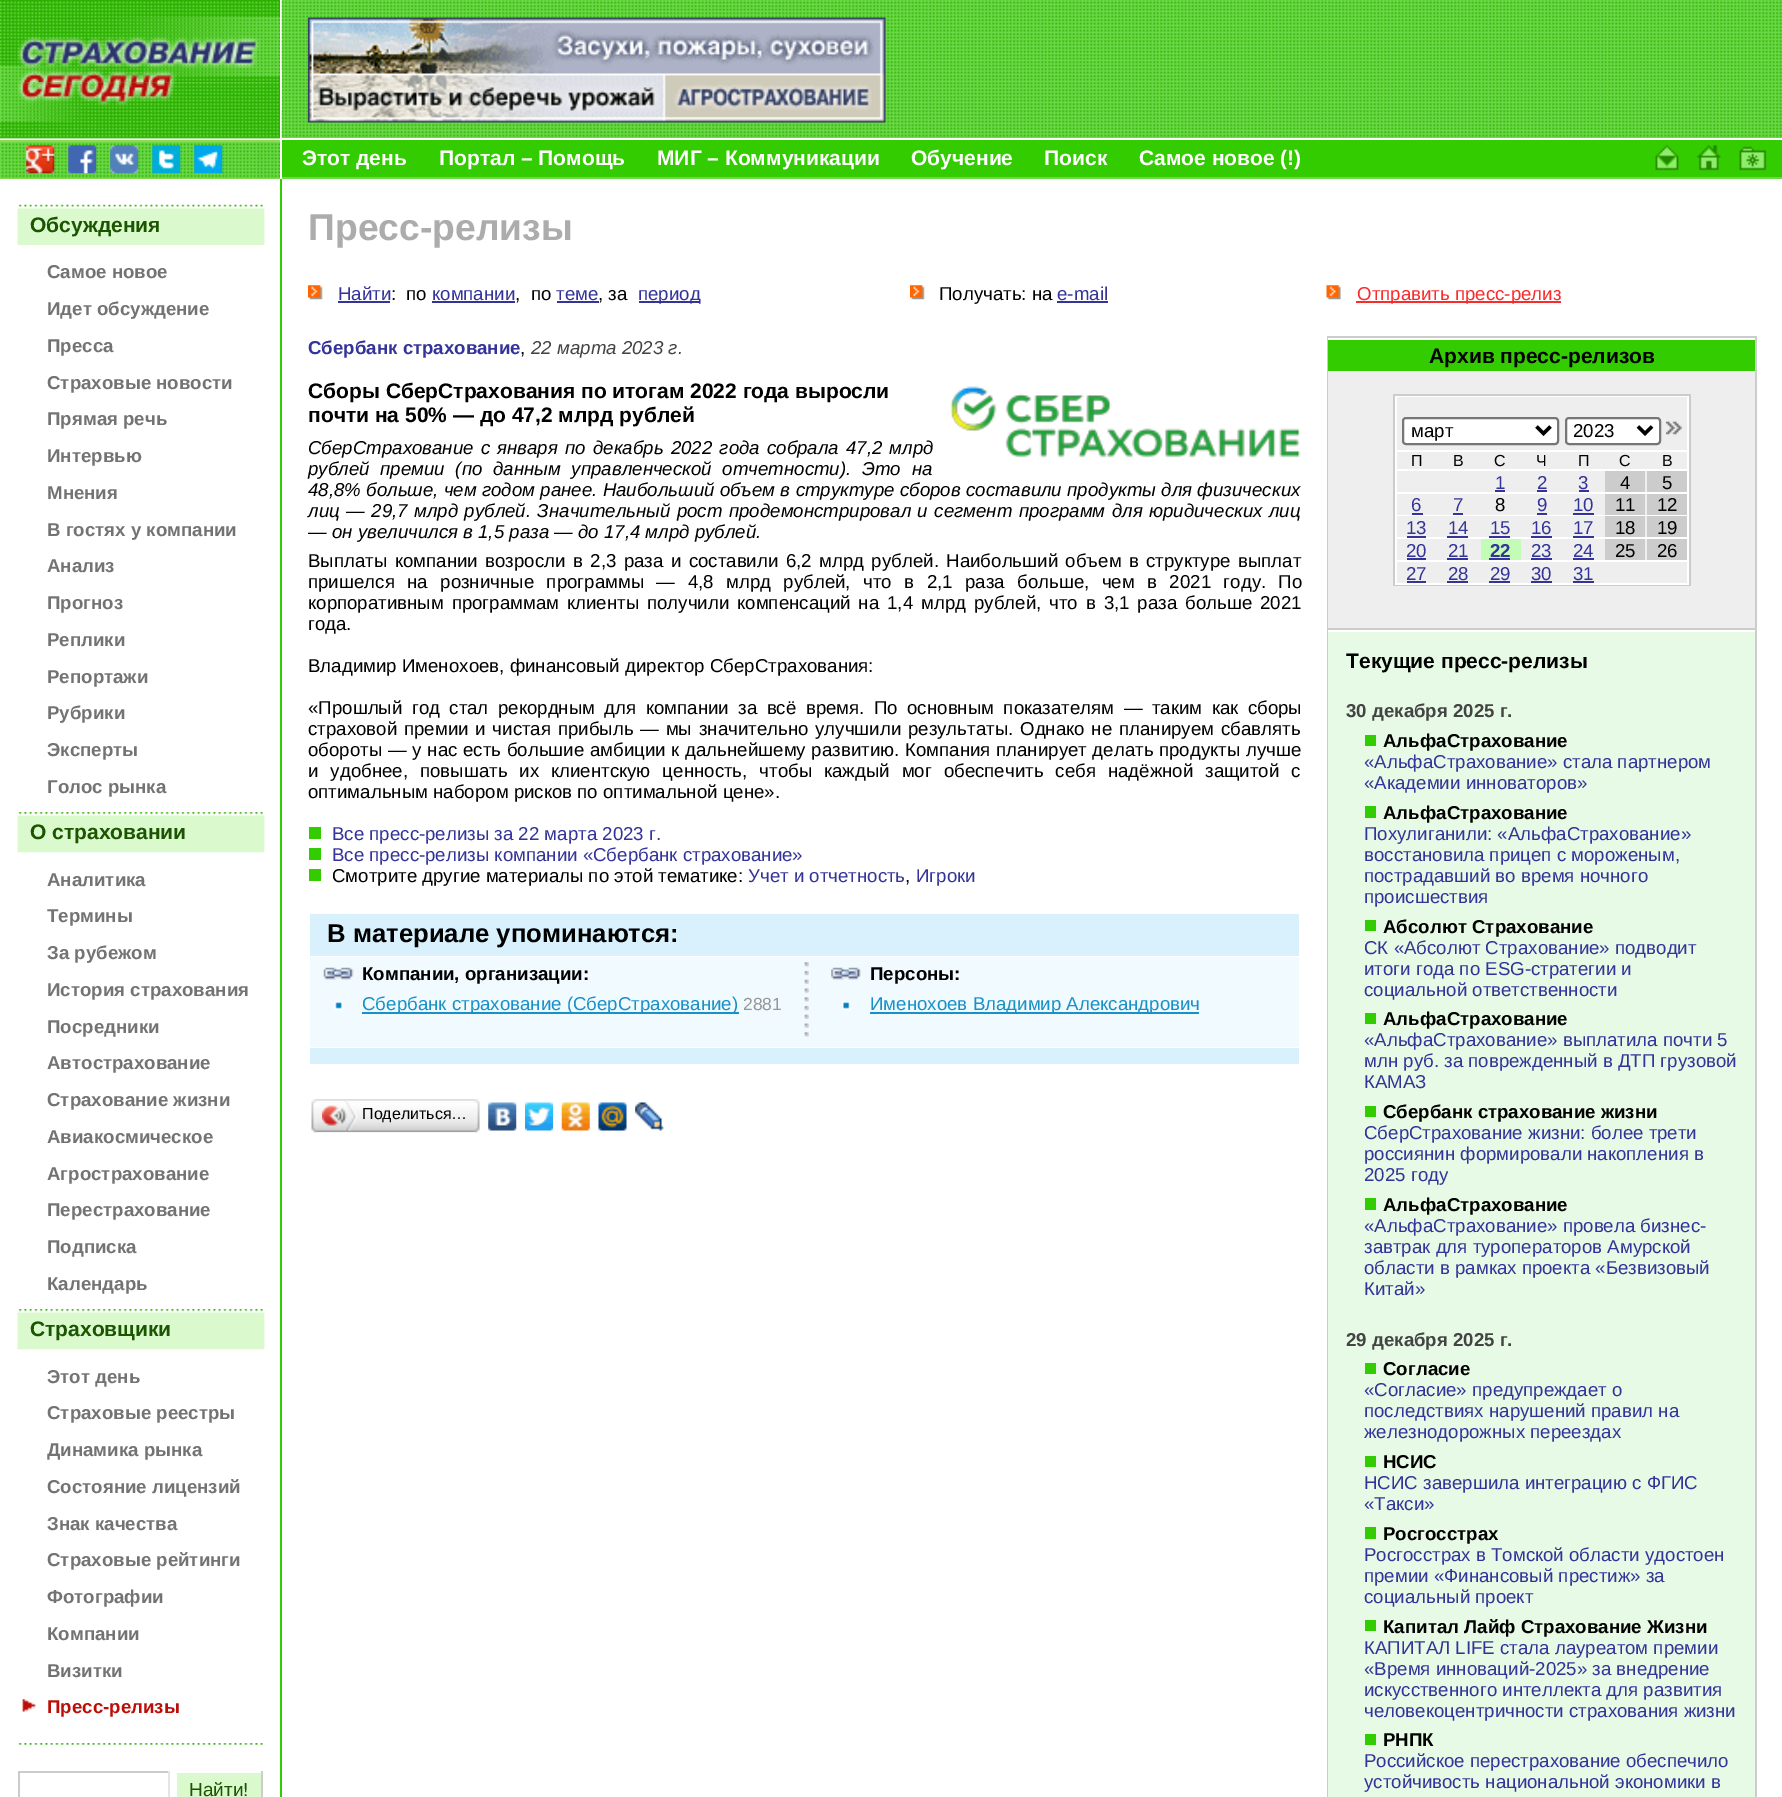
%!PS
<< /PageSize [1782 1797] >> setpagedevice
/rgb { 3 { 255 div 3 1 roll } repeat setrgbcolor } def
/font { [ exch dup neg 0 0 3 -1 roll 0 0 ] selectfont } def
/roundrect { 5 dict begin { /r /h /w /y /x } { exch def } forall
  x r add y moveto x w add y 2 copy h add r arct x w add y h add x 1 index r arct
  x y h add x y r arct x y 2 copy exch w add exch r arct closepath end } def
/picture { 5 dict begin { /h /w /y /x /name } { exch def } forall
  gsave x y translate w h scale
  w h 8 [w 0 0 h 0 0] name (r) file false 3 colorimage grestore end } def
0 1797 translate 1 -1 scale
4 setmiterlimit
255 255 255 rgb
0 0 1782 1797 rectfill
(img/1.rgb) 0 0 280 83 picture
(img/2.rgb) 0 82 280 58 picture
149 216 86 rgb
0 140 280 39 rectfill
(img/3.rgb) 0 141 280 38 picture
(img/4.rgb) 26 145 29 29 picture
(img/5.rgb) 68 145 29 29 picture
(img/6.rgb) 110 145 29 29 picture
(img/7.rgb) 152 145 29 29 picture
(img/8.rgb) 194 145 29 29 picture
(img/10.rgb) 281 0 1501 139 picture
(img/9.rgb) 281 70 1 41 picture
109 217 73 rgb
282 177 1500 2 rectfill
(img/11.rgb) 308 17 578 106 picture
255 255 255 rgb
282 138 1500 1 rectfill
51 204 0 rgb
282 140 1500 37 rectfill
(img/12.rgb) 1655 145 24 26 picture
(img/13.rgb) 1697 145 24 26 picture
(img/14.rgb) 1739 146 28 25 picture
(img/15.rgb) 17 204 248 41 picture
(img/16.rgb) 17 812 248 41 picture
(img/16.rgb) 17 1309 248 41 picture
(img/17.rgb) 22 1699 14 13 picture
(img/18.rgb) 18 1743 245 2 picture
[
  [18 1771 152 2 204 204 204]
  [168 1771 2 26 229 229 229]
  [18 1771 2 26 204 204 204]
  [177 1773 84 24 218 249 205]
  [261 1771 2 26 204 204 204]
  [280 179 2 1618 51 204 0]
] { aload pop rgb rectfill } forall
(img/19.rgb) 308 285 15 15 picture
[
  [338 301 52 2 51 51 153]
  [432 301 83 2 51 51 153]
  [557 301 42 2 51 51 153]
  [639 301 61 2 51 51 153]
] { aload pop rgb rectfill } forall
(img/20.rgb) 910 285 15 15 picture
1057 301 51 2 rectfill
(img/21.rgb) 1326 285 15 15 picture
249 43 43 rgb
1356 301 205 2 rectfill
(img/22.rgb) 950 386 351 72 picture
[
  [309 827 12 12 51 204 0]
  [309 848 12 12 51 204 0]
  [309 869 12 12 51 204 0]
  [310 914 989 42 217 241 253]
  [310 957 989 90 240 250 255]
] { aload pop rgb rectfill } forall
(img/23.rgb) 323 967 31 13 picture
(img/24.rgb) 334 1001 9 9 picture
24 144 200 rgb
362 1012 377 2 rectfill
(img/25.rgb) 804 962 5 75 picture
(img/26.rgb) 804 962 5 75 picture
(img/27.rgb) 831 967 30 13 picture
(img/28.rgb) 842 1001 9 9 picture
870 1012 329 2 rectfill
217 241 253 rgb
310 1048 989 16 rectfill
(img/29.rgb) 316 1099 159 34 picture
(img/30.rgb) 311 1099 6 34 picture
(img/31.rgb) 322 1101 35 30 picture
(img/32.rgb) 474 1099 6 34 picture
(img/33.rgb) 488 1102 29 29 picture
(img/34.rgb) 525 1102 28 29 picture
(img/35.rgb) 561 1102 29 29 picture
(img/36.rgb) 598 1102 29 29 picture
(img/37.rgb) 635 1102 29 29 picture
[
  [1327 336 430 1461 204 204 204]
  [1328 371 427 257 238 238 238]
  [1328 338 427 2 255 255 255]
  [1328 340 427 31 51 204 0]
  [1393 394 298 192 204 204 204]
  [1395 396 294 189 255 255 255]
  [1397 397 290 53 238 238 238]
] { aload pop rgb rectfill } forall
255 255 255 rgb
1403 418 155 26 3 roundrect gsave fill grestore
118 118 118 rgb
2 setlinewidth
stroke
0 0 0 rgb
3.5 setlinewidth
1536.5 426.5 moveto 1543.5 433.5 lineto 1550.5 426.5 lineto stroke
255 255 255 rgb
1566 418 94 26 3 roundrect gsave fill grestore
118 118 118 rgb
2 setlinewidth
stroke
0 0 0 rgb
3.5 setlinewidth
1638 426.5 moveto 1645 433.5 lineto 1652 426.5 lineto stroke
(img/38.rgb) 1666 421 16 14 picture
[
  [1397 452 290 17 238 238 238]
  [1397 471 250 21 238 238 238]
  [1495 490 10 2 51 51 153]
  [1537 490 10 2 51 51 153]
  [1579 490 10 2 51 51 153]
  [1605 471 40 21 204 204 204]
  [1647 471 40 21 204 204 204]
  [1397 494 250 21 238 238 238]
  [1412 513 11 2 51 51 153]
  [1453 513 10 2 51 51 153]
  [1537 513 10 2 51 51 153]
  [1573 513 21 2 51 51 153]
  [1605 494 40 21 204 204 204]
  [1647 494 40 21 204 204 204]
  [1397 516 250 21 238 238 238]
  [1407 536 19 2 51 51 153]
  [1447 536 21 2 51 51 153]
  [1489 536 21 2 51 51 153]
  [1531 536 21 2 51 51 153]
  [1573 536 21 2 51 51 153]
  [1605 516 40 21 204 204 204]
  [1647 516 40 21 204 204 204]
  [1397 539 250 21 238 238 238]
  [1407 558 19 2 51 51 153]
  [1447 558 21 2 51 51 153]
  [1481 539 40 21 194 252 182]
  [1489 558 21 2 51 51 153]
  [1531 558 21 2 51 51 153]
  [1573 558 21 2 51 51 153]
  [1605 539 40 21 204 204 204]
  [1647 539 40 21 204 204 204]
  [1397 562 290 21 238 238 238]
  [1407 581 19 2 51 51 153]
  [1447 581 21 2 51 51 153]
  [1489 581 21 2 51 51 153]
  [1531 581 21 2 51 51 153]
  [1573 581 21 2 51 51 153]
  [1328 630 427 2 255 255 255]
  [1328 632 427 1165 231 250 229]
  [1365 735 11 11 51 204 0]
  [1365 806 11 12 51 204 0]
  [1365 920 11 11 51 204 0]
  [1365 1013 11 11 51 204 0]
  [1365 1106 11 11 51 204 0]
  [1365 1198 11 12 51 204 0]
  [1365 1363 11 11 51 204 0]
  [1365 1456 11 11 51 204 0]
  [1365 1527 11 12 51 204 0]
  [1365 1620 11 11 51 204 0]
  [1365 1734 11 11 51 204 0]
] { aload pop rgb rectfill } forall
/LiberationSans-Bold 21 font
255 255 255 rgb
[
  [(Этот день) 302 165]
  [(Портал – Помощь) 439 165]
  [(МИГ – Коммуникации) 657 165]
  [(Обучение) 911 165]
  [(Поиск) 1044 165]
  [(Самое новое \(!\)) 1139 165]
] { aload pop moveto show } forall
27 85 2 rgb
30 232 moveto (Обсуждения) show
/LiberationSans-Bold 18.67 font
115 115 115 rgb
[
  [(Самое новое) 47 278]
  [(Идет обсуждение) 47 315]
  [(Пресса) 47 352]
  [(Страховые новости) 47 389]
  [(Прямая речь) 47 425]
  [(Интервью) 47 462]
  [(Мнения) 47 499]
  [(В гостях у компании) 47 536]
  [(Анализ) 47 572]
  [(Прогноз) 47 609]
  [(Реплики) 47 646]
  [(Репортажи) 47 683]
  [(Рубрики) 47 719]
  [(Эксперты) 47 756]
  [(Голос рынка) 47 793]
] { aload pop moveto show } forall
/LiberationSans-Bold 21 font
27 85 2 rgb
30 839 moveto (О страховании) show
/LiberationSans-Bold 18.67 font
115 115 115 rgb
[
  [(Аналитика) 47 886]
  [(Термины) 47 922]
  [(За рубежом) 47 959]
  [(История страхования) 47 996]
  [(Посредники) 47 1033]
  [(Автострахование) 47 1069]
  [(Страхование жизни) 47 1106]
  [(Авиакосмическое) 47 1143]
  [(Агрострахование) 47 1180]
  [(Перестрахование) 47 1216]
  [(Подписка) 47 1253]
  [(Календарь) 47 1290]
] { aload pop moveto show } forall
/LiberationSans-Bold 21 font
27 85 2 rgb
30 1336 moveto (Страховщики) show
/LiberationSans-Bold 18.67 font
115 115 115 rgb
[
  [(Этот день) 47 1383]
  [(Страховые реестры) 47 1419]
  [(Динамика рынка) 47 1456]
  [(Состояние лицензий) 47 1493]
  [(Знак качества) 47 1530]
  [(Страховые рейтинги) 47 1566]
  [(Фотографии) 47 1603]
  [(Компании) 47 1640]
  [(Визитки) 47 1677]
] { aload pop moveto show } forall
187 14 8 rgb
47 1713 moveto (Пресс-релизы) show
/LiberationSans-Regular 19 font
27 85 2 rgb
189 1796 moveto (Найти!) show
/LiberationSans-Bold 37.25 font
172 172 172 rgb
308 240 moveto (Пресс-релизы) show
/LiberationSans-Regular 18.67 font
51 51 153 rgb
338 300 moveto (Найти) show
0 0 0 rgb
391 300 moveto (:) show
406 300 moveto (по) show
51 51 153 rgb
432 300 moveto (компании) show
0 0 0 rgb
531 300 moveto (по) show
51 51 153 rgb
556 300 moveto (теме) show
0 0 0 rgb
598 300 moveto (, за) show
51 51 153 rgb
638 300 moveto (период) show
0 0 0 rgb
515 300 moveto (,) show
939 300 moveto (Получать: на) show
51 51 153 rgb
1057 300 moveto (e-mail) show
249 43 43 rgb
1357 300 moveto (Отправить пресс-релиз) show
/LiberationSans-Bold 18.67 font
51 51 153 rgb
308 354 moveto (Сбербанк страхование) show
/LiberationSans-Regular 18.67 font
0 0 0 rgb
520 354 moveto (,) show
/LiberationSans-Italic 18.67 font
68 68 68 rgb
531 354 moveto (22 марта 2023 г.) show
/LiberationSans-Bold 21 font
0 0 0 rgb
308 398 moveto (Сборы СберСтрахования по итогам 2022 года выросли) show
308 422 moveto (почти на 50% — до 47,2 млрд рублей) show
/LiberationSans-Italic 18.67 font
308 454 moveto 2 0 32 (СберСтрахование с января по декабрь 2022 года собрала 47,2 млрд) widthshow
308 475 moveto 5.5 0 32 (рублей премии \(по данным управленческой отчетности\). Это на) widthshow
308 496 moveto 0.1 0 32 (48,8% больше, чем годом ранее. Наибольший объем в структуре сборов составили продукты для физических) widthshow
308 517 moveto 1.25 0 32 (лиц — 29,7 млрд рублей. Значительный рост продемонстрировал и сегмент программ для юридических лиц) widthshow
308 538 moveto (— он увеличился в 1,5 раза — до 17,4 млрд рублей.) show
/LiberationSans-Regular 18.67 font
308 567 moveto 2.25 0 32 (Выплаты компании возросли в 2,3 раза и составили 6,2 млрд рублей. Наибольший объем в структуре выплат) widthshow
308 588 moveto 7.25 0 32 (пришелся на розничные программы — 4,8 млрд рублей, что в 2,1 раза больше, чем в 2021 году. По) widthshow
308 609 moveto 2.75 0 32 (корпоративным программам клиенты получили компенсаций на 1,4 млрд рублей, что в 3,1 раза больше 2021) widthshow
308 630 moveto (года.) show
308 672 moveto (Владимир Именохоев, финансовый директор СберСтрахования:) show
308 714 moveto 4.25 0 32 («Прошлый год стал рекордным для компании за всё время. По основным показателям — таким как сборы) widthshow
308 735 moveto 1.6 0 32 (страховой премии и чистая прибыль — мы значительно улучшили результаты. Однако не планируем сбавлять) widthshow
308 756 moveto 0.5 0 32 (обороты — у нас есть большие амбиции к дальнейшему развитию. Компания планирует делать продукты лучше) widthshow
308 777 moveto 6.75 0 32 (и удобнее, повышать их клиентскую ценность, чтобы каждый мог обеспечить себя надёжной защитой с) widthshow
308 798 moveto (оптимальным набором рисков по оптимальной цене».) show
51 51 153 rgb
332 840 moveto (Все пресс-релизы за 22 марта 2023 г.) show
332 861 moveto (Все пресс-релизы компании «Сбербанк страхование») show
0 0 0 rgb
332 882 moveto (Смотрите другие материалы по этой тематике:) show
51 51 153 rgb
748 882 moveto (Учет и отчетность) show
0 0 0 rgb
905 882 moveto (,) show
51 51 153 rgb
916 882 moveto (Игроки) show
/LiberationSans-Bold 25.7 font
0 0 0 rgb
327 942 moveto (В материале упоминаются:) show
/LiberationSans-Bold 18.67 font
362 980 moveto (Компании, организации:) show
/LiberationSans-Regular 18.67 font
24 144 200 rgb
362 1010 moveto (Сбербанк страхование \(СберСтрахование\)) show
/LiberationSans-Regular 17.5 font
150 150 150 rgb
743 1010 moveto (2881) show
/LiberationSans-Bold 18.67 font
0 0 0 rgb
870 980 moveto (Персоны:) show
/LiberationSans-Regular 18.67 font
24 144 200 rgb
870 1010 moveto (Именохоев Владимир Александрович) show
/LiberationSans-Regular 16 font
0 0 0 rgb
362 1119 moveto (Поделиться…) show
/LiberationSans-Bold 21 font
1429 363 moveto (Архив пресс-релизов) show
/LiberationSans-Regular 18.67 font
1411 437 moveto (март) show
1573 437 moveto (2023) show
/LiberationSans-Regular 16 font
[
  [(П) 1411 466]
  [(В) 1453 466]
  [(С) 1494 466]
  [(Ч) 1536 466]
  [(П) 1578 466]
  [(С) 1619 466]
  [(В) 1662 466]
] { aload pop moveto show } forall
/LiberationSans-Regular 18.67 font
51 51 153 rgb
[
  [(1) 1495 489]
  [(2) 1537 489]
  [(3) 1578 489]
] { aload pop moveto show } forall
0 0 0 rgb
1620 489 moveto (4) show
1662 489 moveto (5) show
51 51 153 rgb
1411 511 moveto (6) show
1453 511 moveto (7) show
0 0 0 rgb
1495 511 moveto (8) show
51 51 153 rgb
1537 511 moveto (9) show
1573 511 moveto (10) show
0 0 0 rgb
1615 511 moveto (11) show
1657 511 moveto (12) show
51 51 153 rgb
[
  [(13) 1406 534]
  [(14) 1448 534]
  [(15) 1490 534]
  [(16) 1531 534]
  [(17) 1573 534]
] { aload pop moveto show } forall
0 0 0 rgb
1615 534 moveto (18) show
1657 534 moveto (19) show
51 51 153 rgb
1406 557 moveto (20) show
1448 557 moveto (21) show
/LiberationSans-Bold 18.67 font
1490 557 moveto (22) show
/LiberationSans-Regular 18.67 font
1531 557 moveto (23) show
1573 557 moveto (24) show
0 0 0 rgb
1615 557 moveto (25) show
1657 557 moveto (26) show
51 51 153 rgb
[
  [(27) 1406 580]
  [(28) 1448 580]
  [(29) 1490 580]
  [(30) 1531 580]
  [(31) 1573 580]
] { aload pop moveto show } forall
/LiberationSans-Bold 21 font
0 0 0 rgb
1346 668 moveto (Текущие пресс-релизы) show
/LiberationSans-Bold 18.67 font
68 68 68 rgb
1346 717 moveto (30 декабря 2025 г.) show
0 0 0 rgb
1383 747 moveto (АльфаСтрахование) show
/LiberationSans-Regular 18.67 font
51 51 153 rgb
1364 768 moveto («АльфаСтрахование» стала партнером) show
1364 789 moveto («Академии инноваторов») show
/LiberationSans-Bold 18.67 font
0 0 0 rgb
1383 819 moveto (АльфаСтрахование) show
/LiberationSans-Regular 18.67 font
51 51 153 rgb
[
  [(Похулиганили: «АльфаСтрахование») 1364 840]
  [(восстановила прицеп с мороженым,) 1364 861]
  [(пострадавший во время ночного) 1364 882]
  [(происшествия) 1364 903]
] { aload pop moveto show } forall
/LiberationSans-Bold 18.67 font
0 0 0 rgb
1383 933 moveto (Абсолют Страхование) show
/LiberationSans-Regular 18.67 font
51 51 153 rgb
[
  [(СК «Абсолют Страхование» подводит) 1364 954]
  [(итоги года по ESG-стратегии и) 1364 975]
  [(социальной ответственности) 1364 996]
] { aload pop moveto show } forall
/LiberationSans-Bold 18.67 font
0 0 0 rgb
1383 1025 moveto (АльфаСтрахование) show
/LiberationSans-Regular 18.67 font
51 51 153 rgb
[
  [(«АльфаСтрахование» выплатила почти 5) 1364 1046]
  [(млн руб. за поврежденный в ДТП грузовой) 1364 1067]
  [(КАМАЗ) 1364 1088]
] { aload pop moveto show } forall
/LiberationSans-Bold 18.67 font
0 0 0 rgb
1383 1118 moveto (Сбербанк страхование жизни) show
/LiberationSans-Regular 18.67 font
51 51 153 rgb
[
  [(СберСтрахование жизни: более трети) 1364 1139]
  [(россиянин формировали накопления в) 1364 1160]
  [(2025 году) 1364 1181]
] { aload pop moveto show } forall
/LiberationSans-Bold 18.67 font
0 0 0 rgb
1383 1211 moveto (АльфаСтрахование) show
/LiberationSans-Regular 18.67 font
51 51 153 rgb
[
  [(«АльфаСтрахование» провела бизнес-) 1364 1232]
  [(завтрак для туроператоров Амурской) 1364 1253]
  [(области в рамках проекта «Безвизовый) 1364 1274]
  [(Китай») 1364 1295]
] { aload pop moveto show } forall
/LiberationSans-Bold 18.67 font
68 68 68 rgb
1346 1346 moveto (29 декабря 2025 г.) show
0 0 0 rgb
1383 1375 moveto (Согласие) show
/LiberationSans-Regular 18.67 font
51 51 153 rgb
[
  [(«Согласие» предупреждает о) 1364 1396]
  [(последствиях нарушений правил на) 1364 1417]
  [(железнодорожных переездах) 1364 1438]
] { aload pop moveto show } forall
/LiberationSans-Bold 18.67 font
0 0 0 rgb
1383 1468 moveto (НСИС) show
/LiberationSans-Regular 18.67 font
51 51 153 rgb
1364 1489 moveto (НСИС завершила интеграцию с ФГИС) show
1364 1510 moveto («Такси») show
/LiberationSans-Bold 18.67 font
0 0 0 rgb
1383 1540 moveto (Росгосстрах) show
/LiberationSans-Regular 18.67 font
51 51 153 rgb
[
  [(Росгосстрах в Томской области удостоен) 1364 1561]
  [(премии «Финансовый престиж» за) 1364 1582]
  [(социальный проект) 1364 1603]
] { aload pop moveto show } forall
/LiberationSans-Bold 18.67 font
0 0 0 rgb
1383 1633 moveto (Капитал Лайф Страхование Жизни) show
/LiberationSans-Regular 18.67 font
51 51 153 rgb
[
  [(КАПИТАЛ LIFE стала лауреатом премии) 1364 1654]
  [(«Время инноваций-2025» за внедрение) 1364 1675]
  [(искусственного интеллекта для развития) 1364 1696]
  [(человекоцентричности страхования жизни) 1364 1717]
] { aload pop moveto show } forall
/LiberationSans-Bold 18.67 font
0 0 0 rgb
1383 1746 moveto (РНПК) show
/LiberationSans-Regular 18.67 font
51 51 153 rgb
1364 1767 moveto (Российское перестрахование обеспечило) show
1364 1788 moveto (устойчивость национальной экономики в) show
showpage
